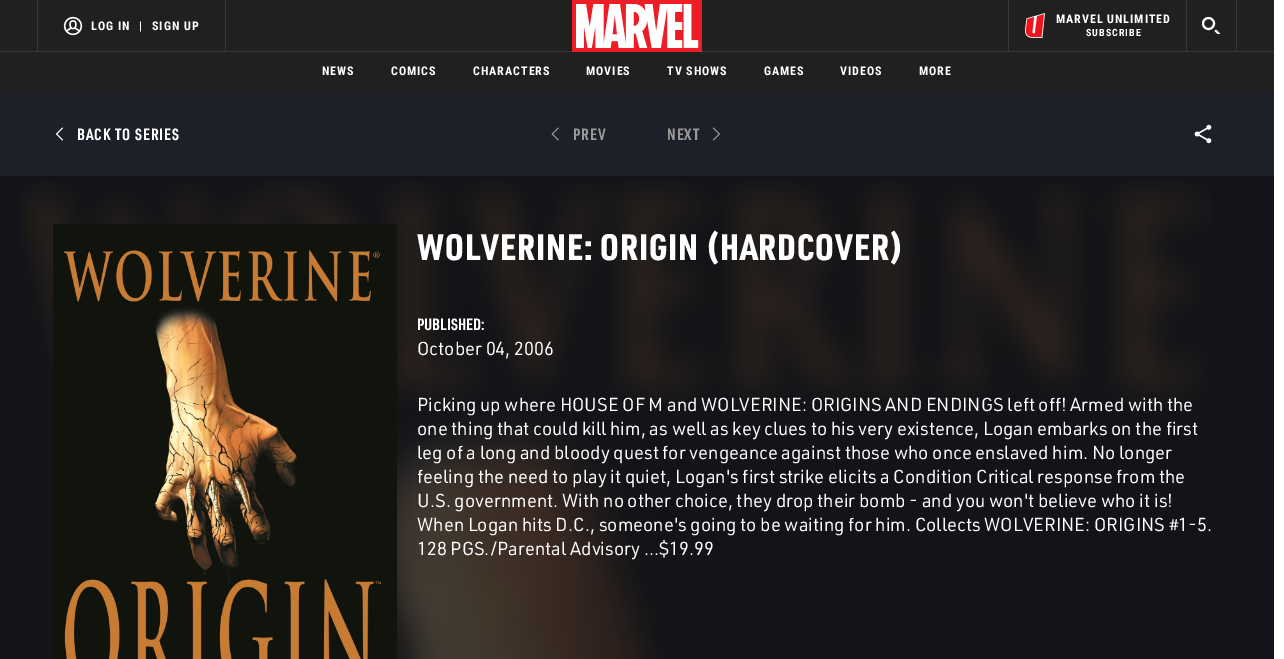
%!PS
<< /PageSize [1284 659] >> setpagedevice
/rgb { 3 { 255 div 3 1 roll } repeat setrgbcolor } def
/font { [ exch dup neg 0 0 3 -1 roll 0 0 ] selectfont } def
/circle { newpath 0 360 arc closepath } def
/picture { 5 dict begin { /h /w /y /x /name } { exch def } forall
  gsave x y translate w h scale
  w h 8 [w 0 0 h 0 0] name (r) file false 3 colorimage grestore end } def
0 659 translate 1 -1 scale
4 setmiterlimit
255 255 255 rgb
0 0 1284 659 rectfill
[
  [0 0 1274 92 32 32 32]
  [0 51 1274 1 57 57 57]
  [37 0 1 51 57 57 57]
  [225 0 1 51 57 57 57]
] { aload pop rgb rectfill } forall
(img/1.rgb) 63 16 20 20 picture
(img/2.rgb) 572 0 130 52 picture
1008 0 1 51 rectfill
(img/3.rgb) 1025 13 20 25 picture
1236 0 1 51 rectfill
1186 0 1 51 rectfill
255 255 255 rgb
2 setlinewidth
1208.5 23.5 5.5 circle stroke
gsave
1202 17 19 17 rectclip
2 setlinecap
1216 31 moveto 1219.5 34.5 lineto stroke
grestore
19 20 26 rgb
0 176 1274 483 rectfill
30 32 41 rgb
0 92 1274 84 rectfill
(img/4.rgb) 55 127 9 14 picture
(img/5.rgb) 551 127 8 14 picture
(img/6.rgb) 712 127 8 14 picture
(img/7.rgb) 1194 124 18 20 picture
(img/8.rgb) 19 179 1193 480 picture
(img/9.rgb) 53 224 344 435 picture
/RobotoCondensed-Bold 12 font
255 255 255 rgb
91 30 moveto 1 0 (LOG IN) ashow
139 30 moveto 1 0 (|) ashow
152 30 moveto 1 0 (SIGN UP) ashow
1056 23 moveto 1 0 (MARVEL UNLIMITED) ashow
/RobotoCondensed-Bold 10 font
1086 36 moveto 1 0 (SUBSCRIBE) ashow
/RobotoCondensed-Bold 12 font
322 75 moveto 1 0 (NEWS) ashow
391 75 moveto 1 0 (COMICS) ashow
473 75 moveto 1 0 (CHARACTERS) ashow
586 75 moveto 1 0 (MOVIES) ashow
667 75 moveto 1 0 (TV SHOWS) ashow
764 75 moveto 1 0 (GAMES) ashow
840 75 moveto 1 0 (VIDEOS) ashow
919 75 moveto 1 0 (MORE) ashow
/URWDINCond-Bold 16 font
77 140 moveto 1 0 (BACK TO SERIES) ashow
153 153 153 rgb
573 140 moveto 1 0 (PREV) ashow
667 140 moveto 1 0 (NEXT) ashow
/URWDINCond-Black 36 font
255 255 255 rgb
417 260 moveto 1 0 (WOLVERINE: ORIGIN \(HARDCOVER\)) ashow
/URWDINCond-Bold 16 font
417 330 moveto (PUBLISHED:) show
/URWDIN-Regular 18.4 font
[
  [(October 04, 2006) 417 355]
  [(Picking up where HOUSE OF M and WOLVERINE: ORIGINS AND ENDINGS left off! Armed with the) 417 411]
  [(one thing that could kill him, as well as key clues to his very existence, Logan embarks on the first) 417 435]
  [(leg of a long and bloody quest for vengeance against those who once enslaved him. No longer) 417 459]
  [(feeling the need to play it quiet, Logan's first strike elicits a Condition Critical response from the) 417 483]
  [(U.S. government. With no other choice, they drop their bomb - and you won't believe who it is!) 417 507]
  [(When Logan hits D.C., someone's going to be waiting for him. Collects WOLVERINE: ORIGINS #1-5.) 417 531]
  [(128 PGS./Parental Advisory ...$19.99) 417 555]
] { aload pop moveto show } forall
showpage
